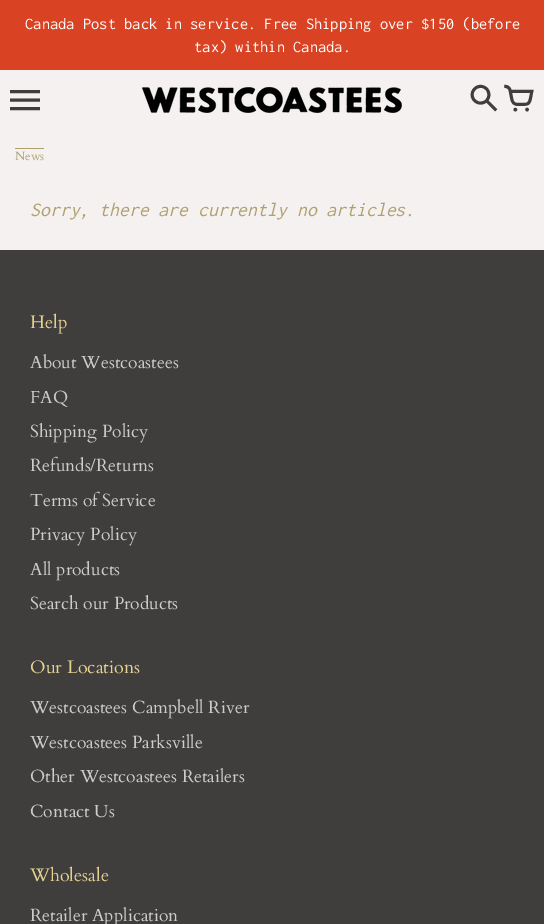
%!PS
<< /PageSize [544 924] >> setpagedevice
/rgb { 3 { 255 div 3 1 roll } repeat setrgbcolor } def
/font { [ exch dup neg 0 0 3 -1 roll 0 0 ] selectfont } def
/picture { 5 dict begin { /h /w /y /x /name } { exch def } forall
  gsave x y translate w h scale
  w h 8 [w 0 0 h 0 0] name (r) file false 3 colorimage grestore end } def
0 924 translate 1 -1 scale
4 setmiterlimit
245 241 240 rgb
0 0 544 924 rectfill
217 67 35 rgb
0 0 544 70 rectfill
(img/1.rgb) 142 87 260 26 picture
175 161 111 rgb
15 148 29 1 rectfill
64 61 61 rgb
0 250 544 674 rectfill
/Inconsolata-Regular 16.5 font
255 255 255 rgb
25 29 moveto (Canada Post back in service. Free Shipping over $150 \(before) show
194 52 moveto (tax\) within Canada.) show
/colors-Regular 30 font
64 61 61 rgb
[
  [(1) 10 117]
  [(2) 469 115]
  [(3) 504 115]
] { aload pop moveto show } forall
/Cardo-Regular 12 font
175 161 111 rgb
15 160 moveto (News) show
/Inconsolata-Italic 19.75 font
30 216 moveto (Sorry, there are currently no articles.) show
/Cardo-Regular 18 font
228 210 144 rgb
30 328 moveto (Help) show
/Cardo-Regular 17.6 font
205 204 204 rgb
[
  [(About Westcoastees) 30 368]
  [(FAQ) 30 403]
  [(Shipping Policy) 30 437]
  [(Refunds/Returns) 30 471]
  [(Terms of Service) 30 506]
  [(Privacy Policy) 30 540]
  [(All products) 30 575]
  [(Search our Products) 30 609]
] { aload pop moveto show } forall
/Cardo-Regular 18 font
228 210 144 rgb
30 673 moveto (Our Locations) show
/Cardo-Regular 17.6 font
205 204 204 rgb
[
  [(Westcoastees Campbell River) 30 713]
  [(Westcoastees Parksville) 30 748]
  [(Other Westcoastees Retailers) 30 782]
  [(Contact Us) 30 817]
] { aload pop moveto show } forall
/Cardo-Regular 18 font
228 210 144 rgb
30 881 moveto (Wholesale) show
/Cardo-Regular 17.6 font
205 204 204 rgb
30 921 moveto (Retailer Application) show
showpage
